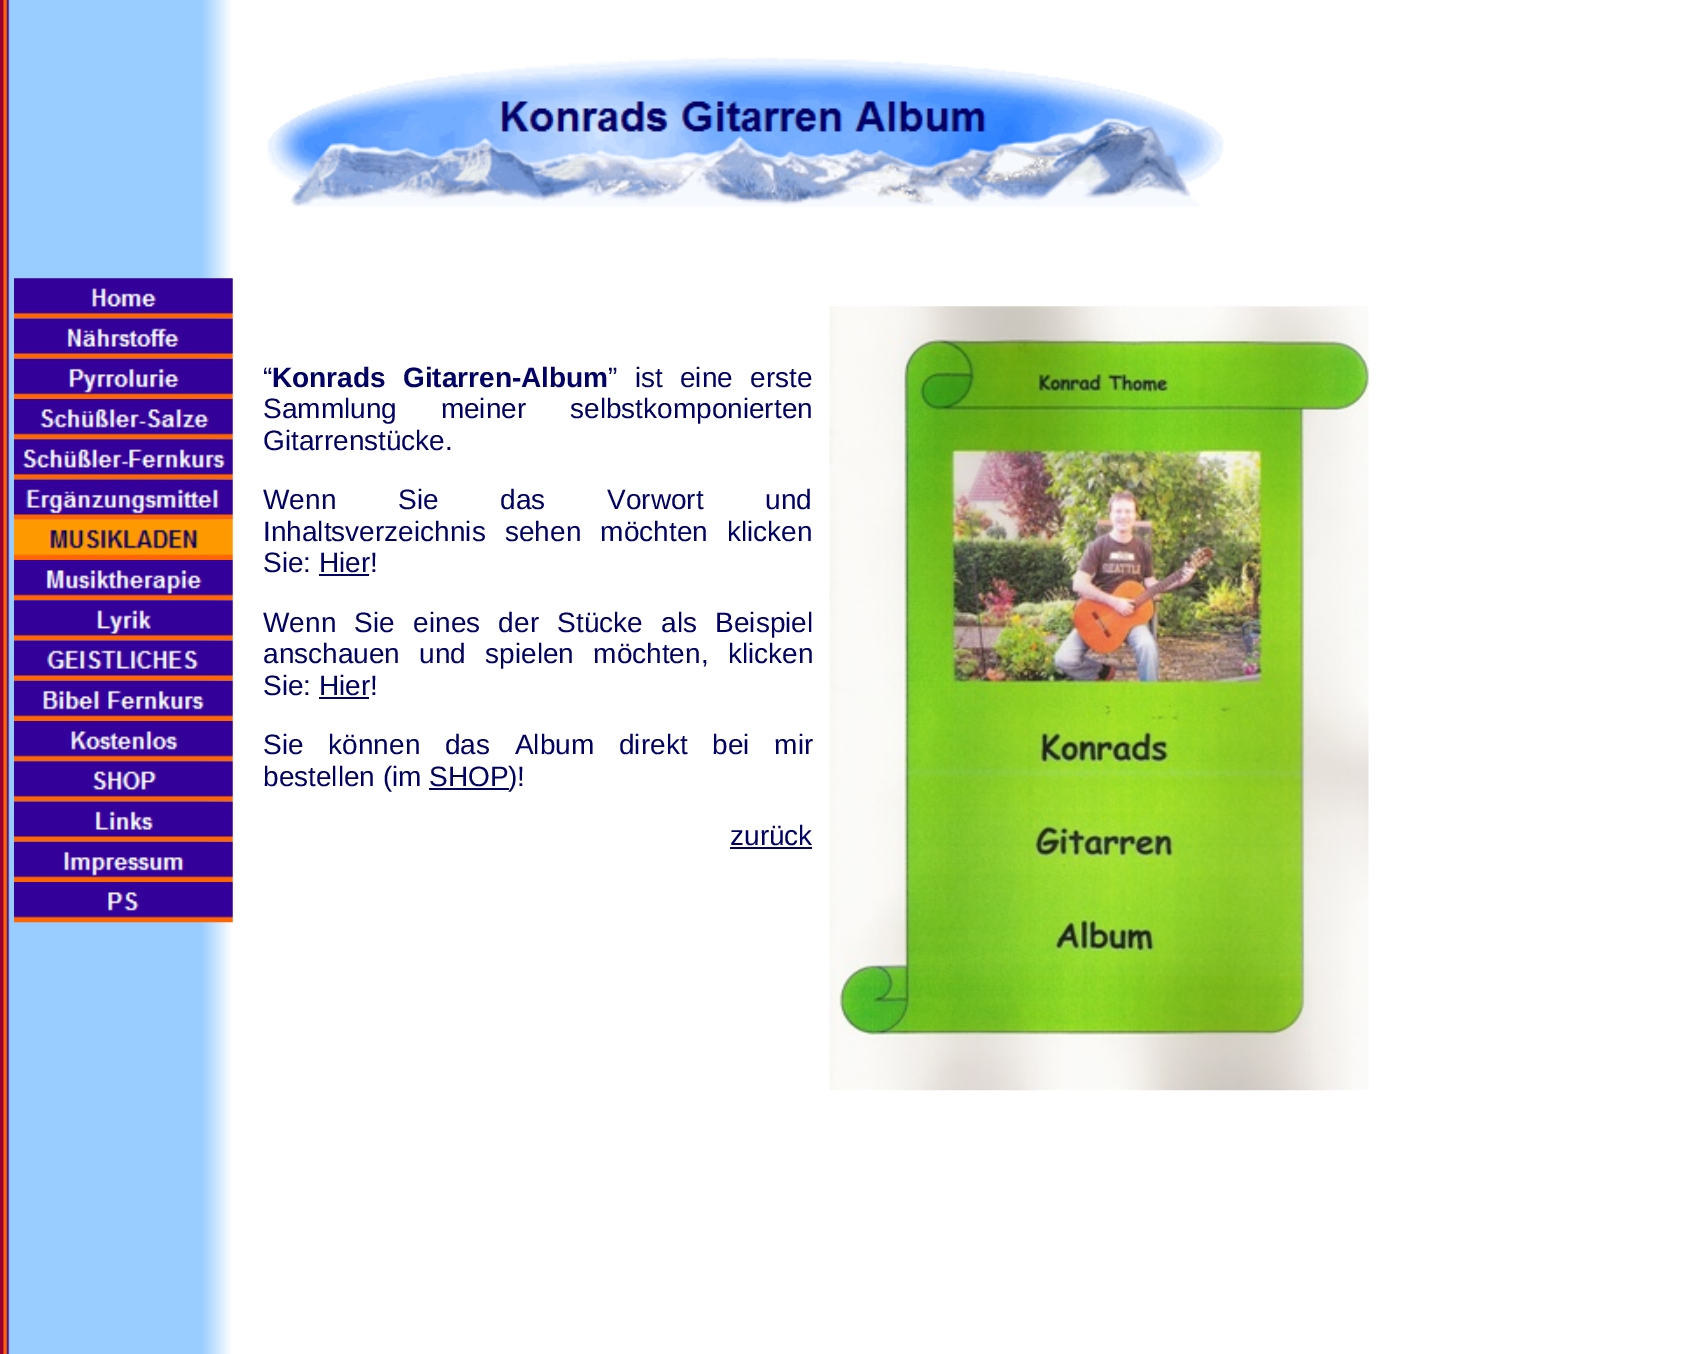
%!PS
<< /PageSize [1697 1354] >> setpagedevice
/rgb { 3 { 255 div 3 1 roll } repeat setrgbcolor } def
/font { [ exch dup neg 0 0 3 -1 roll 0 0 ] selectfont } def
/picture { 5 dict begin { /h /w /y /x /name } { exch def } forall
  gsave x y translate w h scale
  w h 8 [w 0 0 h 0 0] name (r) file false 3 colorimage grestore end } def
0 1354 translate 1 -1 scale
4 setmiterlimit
255 255 255 rgb
0 0 1697 1354 rectfill
(img/1.rgb) 0 0 231 1354 picture
(img/2.rgb) 14 278 219 41 picture
(img/3.rgb) 14 318 219 41 picture
(img/4.rgb) 14 358 219 41 picture
(img/5.rgb) 14 399 219 41 picture
(img/6.rgb) 14 439 219 41 picture
(img/7.rgb) 14 479 219 41 picture
(img/8.rgb) 14 519 219 41 picture
(img/9.rgb) 14 560 219 41 picture
(img/10.rgb) 14 600 219 41 picture
(img/11.rgb) 14 640 219 41 picture
(img/12.rgb) 14 680 219 41 picture
(img/13.rgb) 14 721 219 41 picture
(img/14.rgb) 14 761 219 41 picture
(img/15.rgb) 14 801 219 41 picture
(img/16.rgb) 14 841 219 41 picture
(img/17.rgb) 14 882 219 41 picture
(img/18.rgb) 267 57 957 150 picture
[
  [319 574 50 2 0 0 102]
  [319 697 50 2 0 0 102]
  [429 788 80 2 0 0 102]
  [730 847 82 2 0 0 102]
] { aload pop rgb rectfill } forall
(img/19.rgb) 829 306 540 785 picture
/LiberationSans-Regular 28 font
263 387 moveto (“) show
/LiberationSans-Bold 28 font
272 387 moveto 9.5 0 32 (Konrads Gitarren-Album) widthshow
/LiberationSans-Regular 28 font
608 387 moveto 9.5 0 32 (” ist eine erste) widthshow
263 418 moveto 36 0 32 (Sammlung meiner selbstkomponierten) widthshow
263 450 moveto (Gitarrenstücke.) show
263 509 moveto 54 0 32 (Wenn Sie das Vorwort und) widthshow
263 541 moveto 11.5 0 32 (Inhaltsverzeichnis sehen möchten klicken) widthshow
263 572 moveto (Sie: Hier!) show
263 632 moveto 10.5 0 32 (Wenn Sie eines der Stücke als Beispiel) widthshow
263 663 moveto 11.5 0 32 (anschauen und spielen möchten, klicken) widthshow
263 695 moveto (Sie: Hier!) show
263 754 moveto 17 0 32 (Sie können das Album direkt bei mir) widthshow
[
  [(bestellen \(im SHOP) 263 786]
  [(\)!) 508 786]
  [(zurück) 730 845]
] { aload pop moveto show } forall
showpage
